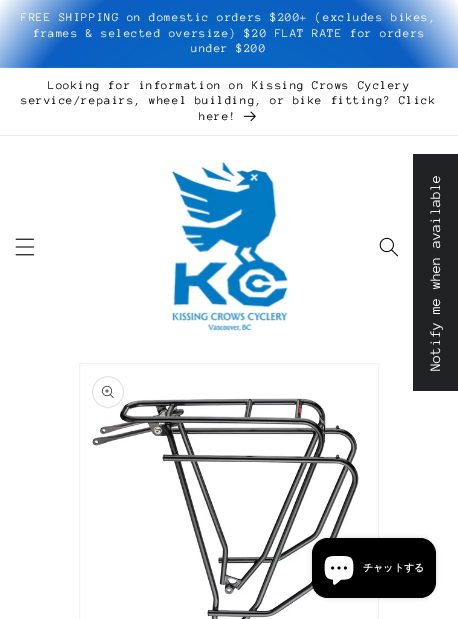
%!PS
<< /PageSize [458 619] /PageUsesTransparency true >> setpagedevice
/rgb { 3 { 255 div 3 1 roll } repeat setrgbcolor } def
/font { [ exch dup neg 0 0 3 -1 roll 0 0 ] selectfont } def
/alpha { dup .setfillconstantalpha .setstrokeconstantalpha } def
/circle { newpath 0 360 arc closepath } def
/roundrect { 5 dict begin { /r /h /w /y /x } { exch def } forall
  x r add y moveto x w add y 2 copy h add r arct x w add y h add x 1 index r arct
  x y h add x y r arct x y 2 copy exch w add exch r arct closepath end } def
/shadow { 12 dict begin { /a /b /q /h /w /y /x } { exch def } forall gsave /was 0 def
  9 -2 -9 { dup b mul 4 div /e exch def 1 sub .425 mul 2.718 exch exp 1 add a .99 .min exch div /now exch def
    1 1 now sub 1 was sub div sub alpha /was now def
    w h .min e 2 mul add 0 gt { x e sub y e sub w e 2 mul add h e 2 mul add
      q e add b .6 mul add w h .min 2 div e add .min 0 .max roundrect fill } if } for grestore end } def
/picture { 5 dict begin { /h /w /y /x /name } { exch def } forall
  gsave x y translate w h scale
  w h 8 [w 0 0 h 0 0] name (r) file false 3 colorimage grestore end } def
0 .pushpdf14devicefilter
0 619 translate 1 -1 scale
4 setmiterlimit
255 255 255 rgb
0 0 458 619 rectfill
gsave 0 0 moveto 458 0 lineto 458 67 lineto 0 67 lineto closepath clip newpath 229 310 translate 324 438 scale
<< /ShadingType 3 /ColorSpace /DeviceRGB /Coords [0 0 0 0 0 1] /Extend [true true] /Function << /FunctionType 3 /Domain [0 1] /Functions [<< /FunctionType 2 /Domain [0 1] /C0 [0.008 0.475 0.761] /C1 [0.047 0.369 0.761] /N 1 >> << /FunctionType 2 /Domain [0 1] /C0 [0.047 0.369 0.761] /C1 [1 1 1] /N 1 >>] /Bounds [0.8] /Encode [0 1 0 1] >> >> shfill grestore
gsave 0 67 moveto 458 67 lineto 458 68 lineto 0 68 lineto closepath clip newpath 229 310 translate 324 438 scale
<< /ShadingType 3 /ColorSpace /DeviceRGB /Coords [0 0 0 0 0 1] /Extend [true true] /Function << /FunctionType 3 /Domain [0 1] /Functions [<< /FunctionType 2 /Domain [0 1] /C0 [0.086 0.518 0.78] /C1 [0.122 0.42 0.78] /N 1 >> << /FunctionType 2 /Domain [0 1] /C0 [0.122 0.42 0.78] /C1 [1 1 1] /N 1 >>] /Bounds [0.8] /Encode [0 1 0 1] >> >> shfill grestore
235 235 235 rgb
0 135 458 1 rectfill
(img/1.rgb) 244 111 12 11 picture
(img/2.rgb) 15 238 20 18 picture
(img/3.rgb) 171 162 117 169 picture
(img/4.rgb) 379 237 19 20 picture
32 34 35 rgb
413 154 45 237 rectfill
242 242 242 rgb
79.5 363.5 299 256 rectstroke
(img/6.rgb) 92 398 267 221 picture
230 230 230 rgb
108 392 15.5 circle stroke
(img/5.rgb) 102 386 12 12 picture
0 0 0 rgb
312 538 124 60 16 2.5 0.15 shadow
312 538 124 60 16 roundrect fill
(img/7.rgb) 324 556 30 29 picture
/AnonymousPro-Regular 12 font
255 255 255 rgb
21 21 moveto 1 0 (FREE SHIPPING on domestic orders $200+ \(excludes bikes,) ashow
33 37 moveto 1 0 (frames & selected oversize\) $20 FLAT RATE for orders) ashow
191 52 moveto 1 0 (under $200) ashow
0 0 0 rgb
48 89 moveto 1 0 (Looking for information on Kissing Crows Cyclery) ashow
21 104 moveto 1 0 (service/repairs, wheel building, or bike fitting? Click) ashow
199 120 moveto 1 0 (here!) ashow
/AnonymousPro-Regular 15 font
255 255 255 rgb
gsave 440 371 translate -90 rotate 0 0 moveto (Notify me when available) show grestore
/WenQuanYiZenHei-Bold 10 font
363 571 moveto (チャットする) show
.poppdf14devicefilter showpage
